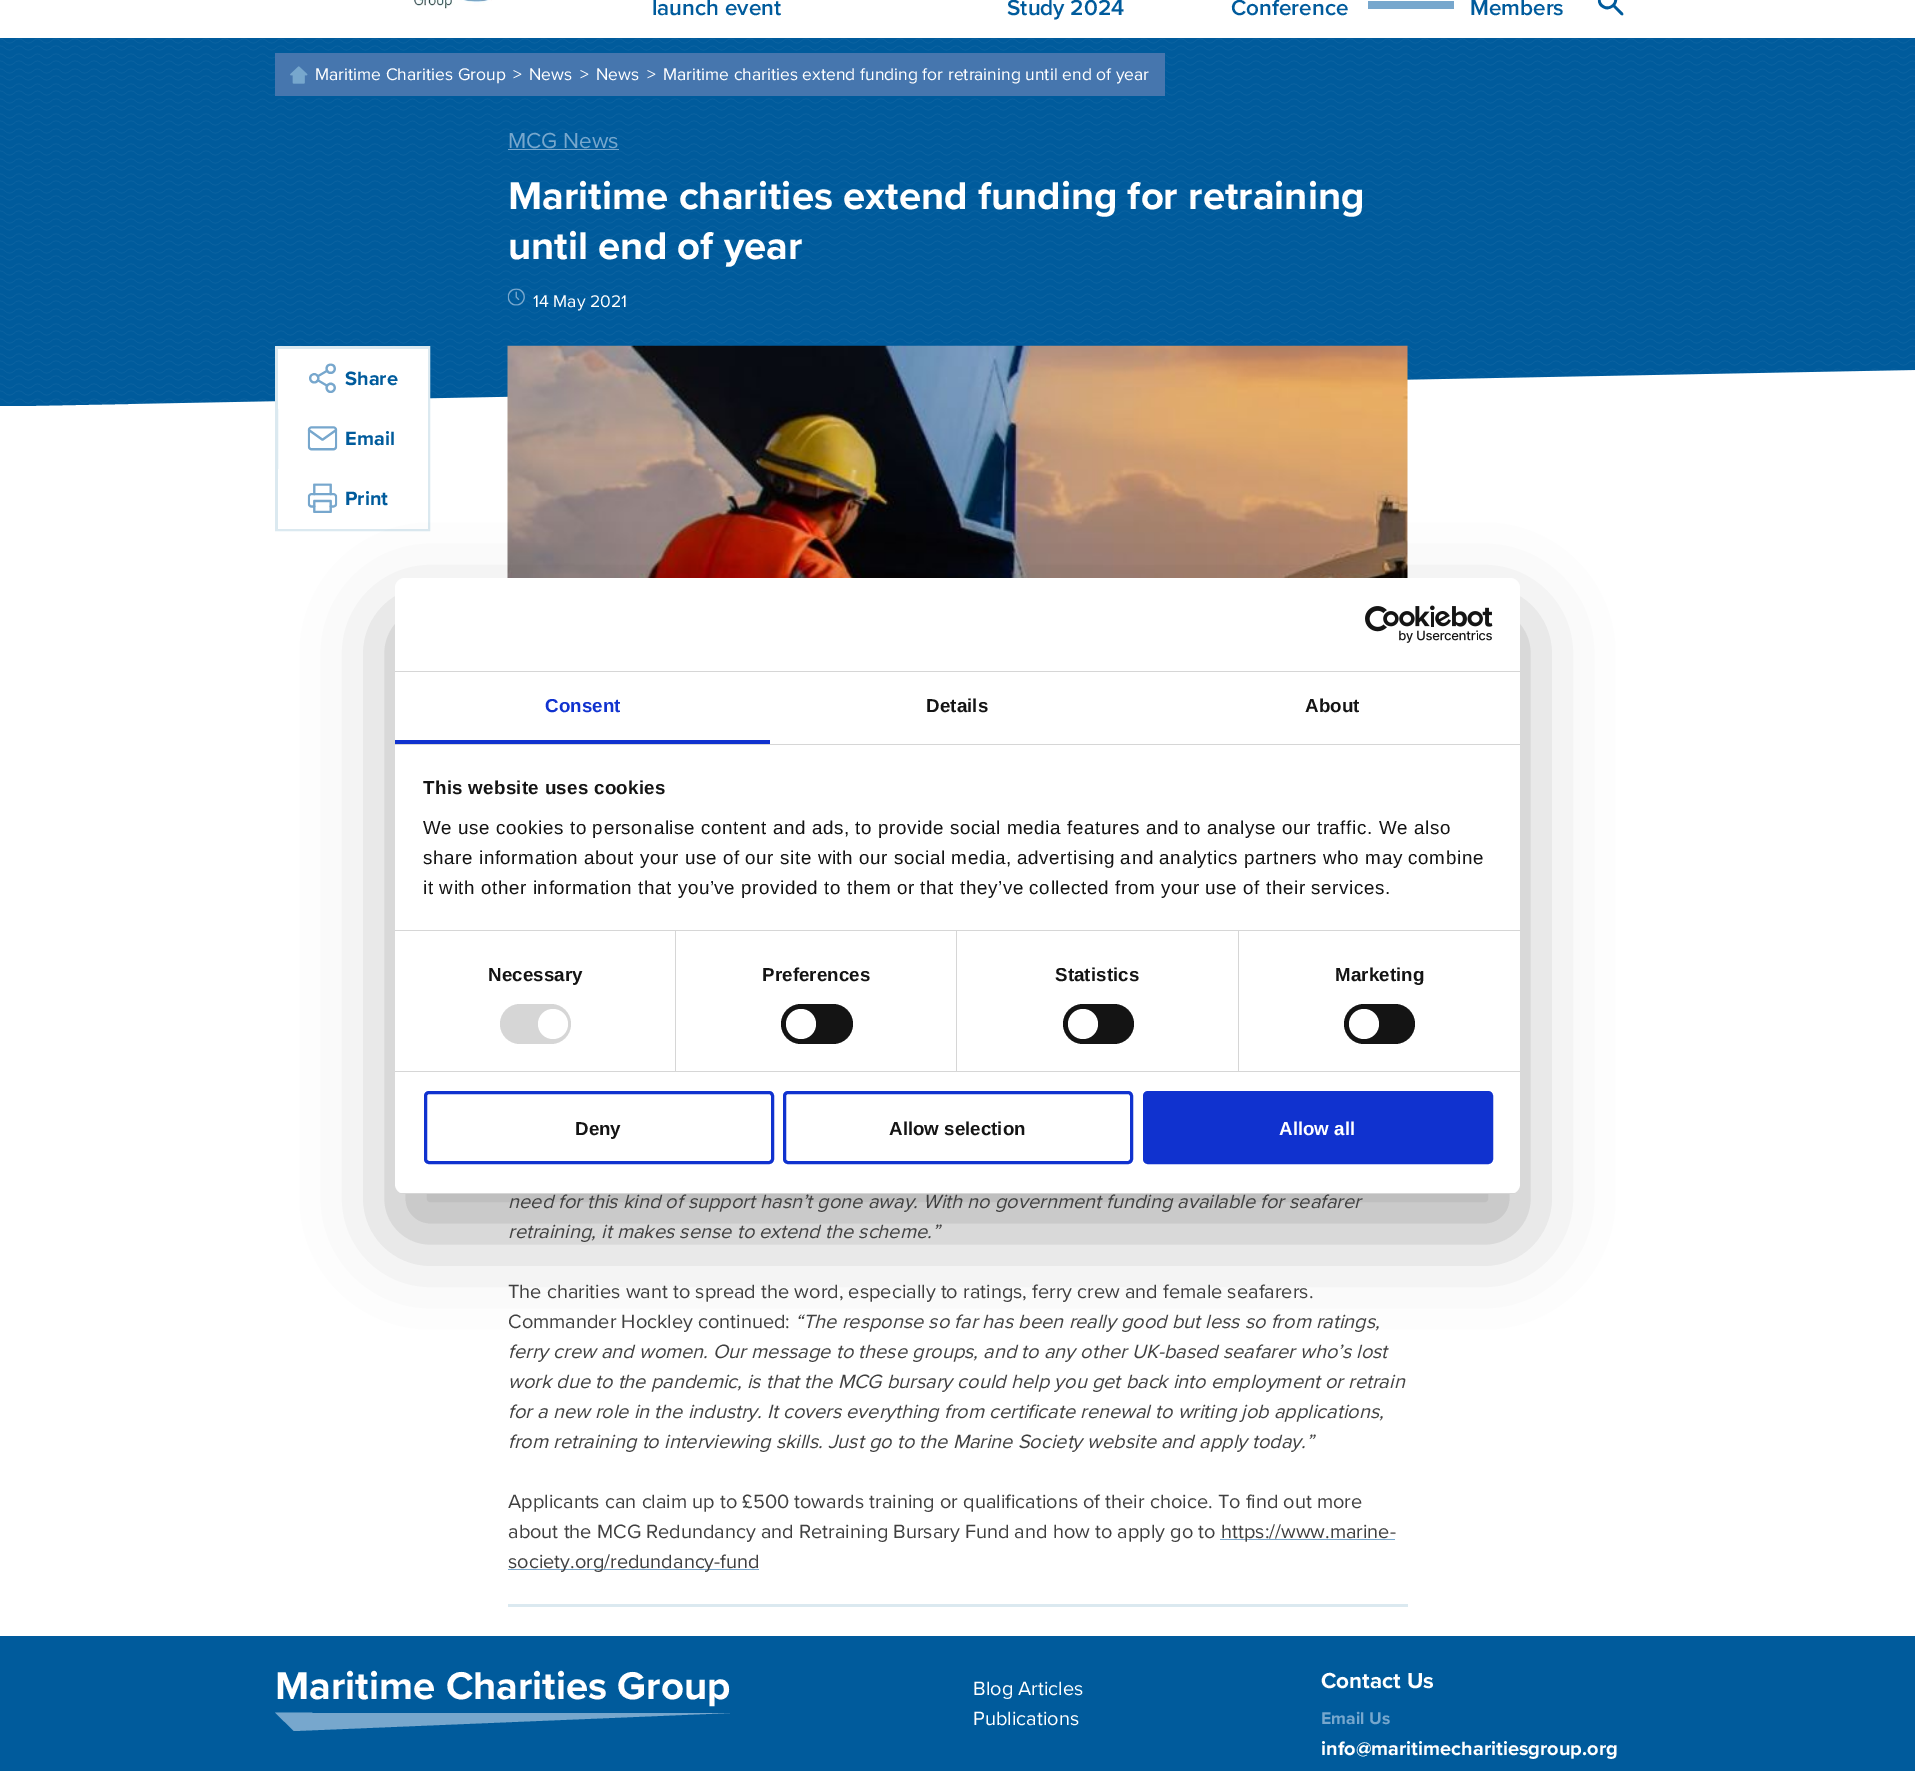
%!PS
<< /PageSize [1915 1771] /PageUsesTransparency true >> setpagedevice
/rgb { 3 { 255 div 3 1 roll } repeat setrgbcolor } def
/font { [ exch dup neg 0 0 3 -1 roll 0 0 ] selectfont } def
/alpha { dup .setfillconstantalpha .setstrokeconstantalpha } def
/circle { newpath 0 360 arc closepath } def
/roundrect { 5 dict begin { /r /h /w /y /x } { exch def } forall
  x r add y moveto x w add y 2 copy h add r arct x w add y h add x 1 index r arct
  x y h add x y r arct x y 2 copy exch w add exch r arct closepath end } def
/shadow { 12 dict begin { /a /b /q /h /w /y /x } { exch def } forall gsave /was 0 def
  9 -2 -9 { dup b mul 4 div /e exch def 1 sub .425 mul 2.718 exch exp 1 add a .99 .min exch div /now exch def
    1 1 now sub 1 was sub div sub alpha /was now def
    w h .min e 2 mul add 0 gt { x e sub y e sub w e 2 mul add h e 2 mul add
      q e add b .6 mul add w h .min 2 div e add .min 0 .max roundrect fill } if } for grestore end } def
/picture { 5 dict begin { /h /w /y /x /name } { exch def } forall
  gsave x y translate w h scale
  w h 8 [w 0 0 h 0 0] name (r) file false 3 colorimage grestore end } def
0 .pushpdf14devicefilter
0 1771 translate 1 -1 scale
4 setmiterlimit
255 255 255 rgb
0 0 1915 1771 rectfill
(img/1.rgb) 413 0 79 9 picture
119 167 205 rgb
1368 1 86 8 rectfill
(img/2.rgb) 1597 0 27 16 picture
0 91 156 rgb
0 38 moveto 0 406 lineto 23 406 lineto 1915 370 lineto 1915 38 lineto closepath fill
(img/3.rgb) 0 38 1915 366 picture
70 118 174 rgb
275 53 890 43 rectfill
(img/4.rgb) 290 66 18 18 picture
119 167 205 rgb
508 149 111 1 rectfill
(img/5.rgb) 507 288 18 18 picture
219 233 240 rgb
3 setlinewidth
276.5 347.5 152 182 rectstroke
255 255 255 rgb
278 349 150 60 rectfill
(img/6.rgb) 309 363 27 30 picture
427 409 1 60 rectfill
(img/7.rgb) 307 426 31 25 picture
278 469 150 60 rectfill
(img/8.rgb) 307 483 31 30 picture
(img/9.rgb) 507 345 901 233 picture
[
  [1220 1539 175 1 119 167 205]
  [508 1569 251 1 119 167 205]
  [508 1604 900 3 219 233 240]
] { aload pop rgb rectfill } forall
0 0 0 rgb
395 618 1125 616 10 42.5 0.3 shadow
255 255 255 rgb
395 578 1125 616 10 roundrect fill
214 214 214 rgb
395 671 1125 1 rectfill
(img/10.rgb) 1365 605 128 38 picture
[
  [395 744 1125 1 214 214 214]
  [395 740 375 4 16 50 207]
  [395 930 1125 1 214 214 214]
  [395 1071 1125 1 214 214 214]
  [675 931 1 140 214 214 214]
] { aload pop rgb rectfill } forall
500 1004 71 40 20 roundrect fill
255 255 255 rgb
553 1024 15 circle fill
214 214 214 rgb
956 931 1 140 rectfill
20 20 20 rgb
781 1004 72 40 20 roundrect fill
255 255 255 rgb
801 1024 15 circle fill
214 214 214 rgb
1238 931 1 140 rectfill
20 20 20 rgb
1063 1004 71 40 20 roundrect fill
255 255 255 rgb
1083 1024 15 circle fill
20 20 20 rgb
1344 1004 71 40 20 roundrect fill
255 255 255 rgb
1364 1024 15 circle fill
gsave
395 578 1125 616 10 roundrect clip newpath
214 214 214 rgb
395 1193 1125 1 rectfill
grestore
16 50 207 rgb
425.5 1092.5 347 70 3.5 roundrect stroke
784.5 1092.5 347 70 3.5 roundrect stroke
1144.5 1092.5 347 70 3.5 roundrect gsave fill grestore
stroke
0 91 156 rgb
0 1636 1915 135 rectfill
119 167 205 rgb
275 1712.5 moveto 312.5 1712.5 lineto 294 1731 lineto closepath fill
gsave
294 1713 436 18 rectclip
294 1731 moveto 730 1713 lineto 730 1712 lineto 294 1712 lineto eofill
grestore
/ProximaNova-SemiBold 22.5 font
0 91 156 rgb
[
  [(launch event) 652 15]
  [(Study 2024) 1007 15]
  [(Conference) 1231 15]
  [(Members) 1470 15]
] { aload pop moveto show } forall
/ProximaNova-Regular 17.5 font
255 255 255 rgb
[
  [(Maritime Charities Group) 315 80]
  [(>) 513 80]
  [(News) 529 80]
  [(>) 580 80]
  [(News) 596 80]
  [(>) 647 80]
  [(Maritime charities extend funding for retraining until end of year) 663 80]
] { aload pop moveto show } forall
/ProximaNova-Regular 22.5 font
119 167 205 rgb
508 148 moveto (MCG News) show
/ProximaNova-Bold 40 font
255 255 255 rgb
508 209 moveto (Maritime charities extend funding for retraining) show
508 259 moveto (until end of year) show
/ProximaNova-Regular 17.5 font
533 307 moveto (14 May 2021) show
/ProximaNova-Bold 20 font
0 91 156 rgb
[
  [(Share) 345 385]
  [(Email) 345 445]
  [(Print) 345 505]
] { aload pop moveto show } forall
/ProximaNova-Italic 20 font
64 64 64 rgb
508 1208 moveto (need for this kind of support hasn’t gone away. With no government funding available for seafarer) show
508 1238 moveto (retraining, it makes sense to extend the scheme.”) show
/ProximaNova-Regular 20 font
508 1298 moveto (The charities want to spread the word, especially to ratings, ferry crew and female seafarers.) show
508 1328 moveto (Commander Hockley continued:) show
/ProximaNova-Italic 20 font
[
  [(“The response so far has been really good but less so from ratings,) 795 1328]
  [(ferry crew and women. Our message to these groups, and to any other UK-based seafarer who’s lost) 508 1358]
  [(work due to the pandemic, is that the MCG bursary could help you get back into employment or retrain) 508 1388]
  [(for a new role in the industry. It covers everything from certificate renewal to writing job applications,) 508 1418]
  [(from retraining to interviewing skills. Just go to the Marine Society website and apply today.”) 508 1448]
] { aload pop moveto show } forall
/ProximaNova-Regular 20 font
[
  [(Applicants can claim up to £500 towards training or qualifications of their choice. To find out more) 508 1508]
  [(about the MCG Redundancy and Retraining Bursary Fund and how to apply go to) 508 1538]
  [(https://www.marine-) 1221 1538]
  [(society.org/redundancy-fund) 508 1568]
] { aload pop moveto show } forall
/LiberationSans-Bold 18.75 font
16 50 207 rgb
545 712 moveto 0.1 0 (Consent) ashow
20 20 20 rgb
926 712 moveto 0.1 0 (Details) ashow
1305 712 moveto 0.1 0 (About) ashow
423 794 moveto 0.3 0 (This website uses cookies) ashow
/LiberationSans-Regular 18.75 font
423 834 moveto 0.62 0 (We use cookies to personalise content and ads, to provide social media features and to analyse our traffic. We also) ashow
423 864 moveto 0.62 0 (share information about your use of our site with our social media, advertising and analytics partners who may combine) ashow
423 894 moveto 0.62 0 (it with other information that you’ve provided to them or that they’ve collected from your use of their services.) ashow
/LiberationSans-Bold 18.75 font
488 981 moveto 0.1 0 (Necessary) ashow
762 981 moveto 0.1 0 (Preferences) ashow
1055 981 moveto 0.1 0 (Statistics) ashow
1335 981 moveto 0.1 0 (Marketing) ashow
575 1135 moveto (Deny) show
889 1135 moveto (Allow selection) show
255 255 255 rgb
1279 1135 moveto (Allow all) show
/ProximaNova-Bold 40 font
275 1699 moveto (Maritime Charities Group) show
/ProximaNova-Regular 20 font
973 1695 moveto (Blog Articles) show
973 1725 moveto (Publications) show
/ProximaNova-Bold 22.5 font
1321 1688 moveto (Contact Us) show
/ProximaNova-Bold 17.5 font
119 167 205 rgb
1321 1724 moveto (Email Us) show
/ProximaNova-Bold 20 font
255 255 255 rgb
1321 1755 moveto (info@maritimecharitiesgroup.org) show
.poppdf14devicefilter showpage
